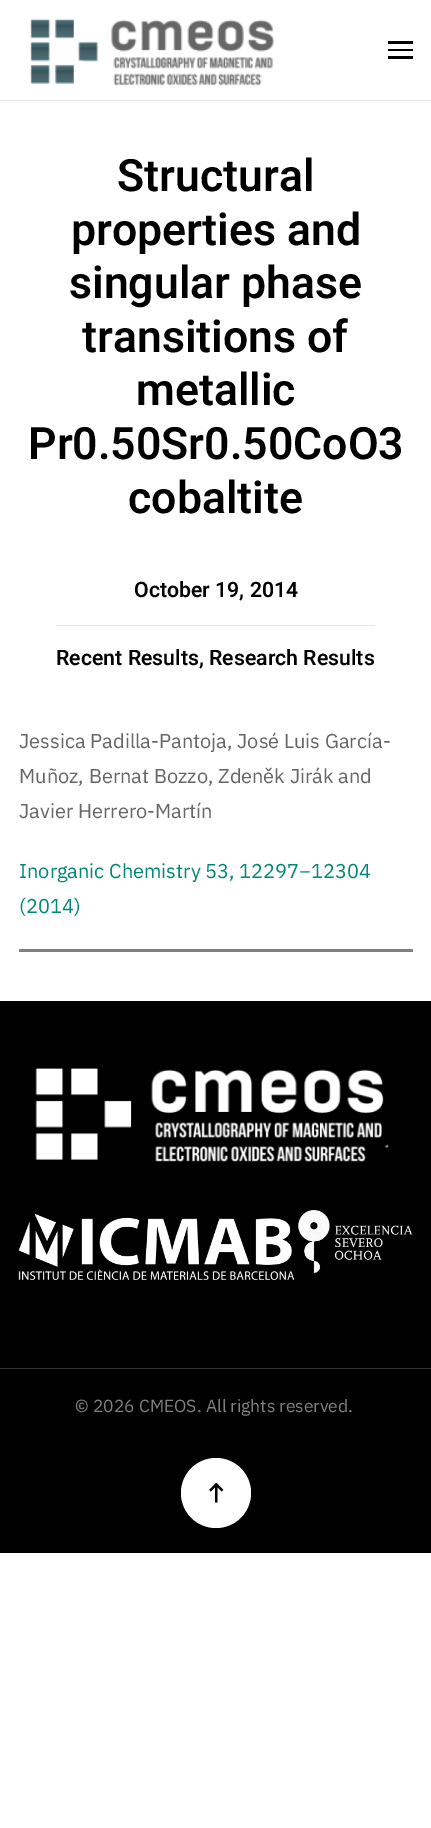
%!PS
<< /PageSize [431 1828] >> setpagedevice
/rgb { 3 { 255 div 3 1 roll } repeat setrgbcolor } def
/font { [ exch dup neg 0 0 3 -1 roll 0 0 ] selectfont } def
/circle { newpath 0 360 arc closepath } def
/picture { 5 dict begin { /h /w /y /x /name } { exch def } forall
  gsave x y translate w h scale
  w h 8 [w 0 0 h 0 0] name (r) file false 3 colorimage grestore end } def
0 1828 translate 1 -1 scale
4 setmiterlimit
255 255 255 rgb
0 0 431 1828 rectfill
232 232 232 rgb
0 100 431 1 rectfill
(img/1.rgb) 30 18 244 68 picture
[
  [388 41 25 3 0 0 0]
  [388 49 25 2 0 0 0]
  [388 56 25 3 0 0 0]
  [56 625 319 1 232 232 232]
  [19 949 394 3 128 128 128]
  [0 1001 431 367 0 0 0]
] { aload pop rgb rectfill } forall
(img/2.rgb) 35 1068 354 94 picture
(img/3.rgb) 18 1210 395 70 picture
51 51 51 rgb
0 1368 431 1 rectfill
0 0 0 rgb
0 1369 431 184 rectfill
255 255 255 rgb
216 1493 35 circle fill
(img/4.rgb) 209 1483 15 20 picture
/Heebo-SemiBold 44.6 font
0 0 0 rgb
[
  [(Structural) 117 191]
  [(properties and) 71 245]
  [(singular phase) 69 298]
  [(transitions of) 82 352]
  [(metallic) 136 405]
  [(Pr0.50Sr0.50CoO3) 28 459]
  [(cobaltite) 128 513]
] { aload pop moveto show } forall
/Heebo-SemiBold 21.25 font
134 597 moveto (October 19, 2014) show
56 665 moveto (Recent Results, Research Results) show
/IBMPlexSans-Regular 20 font
102 102 102 rgb
[
  [(Jessica Padilla-Pantoja, José Luis García-) 19 748]
  [(Muñoz, Bernat Bozzo, Zdeněk Jirák and) 19 783]
  [(Javier Herrero-Martín) 19 818]
] { aload pop moveto show } forall
0 135 118 rgb
19 878 moveto (Inorganic Chemistry 53, 12297−12304) show
19 913 moveto (\(2014\)) show
/IBMPlexSans-Regular 17.5 font
128 128 128 rgb
75 1412 moveto (© 2026 CMEOS. All rights reserved.) show
showpage
